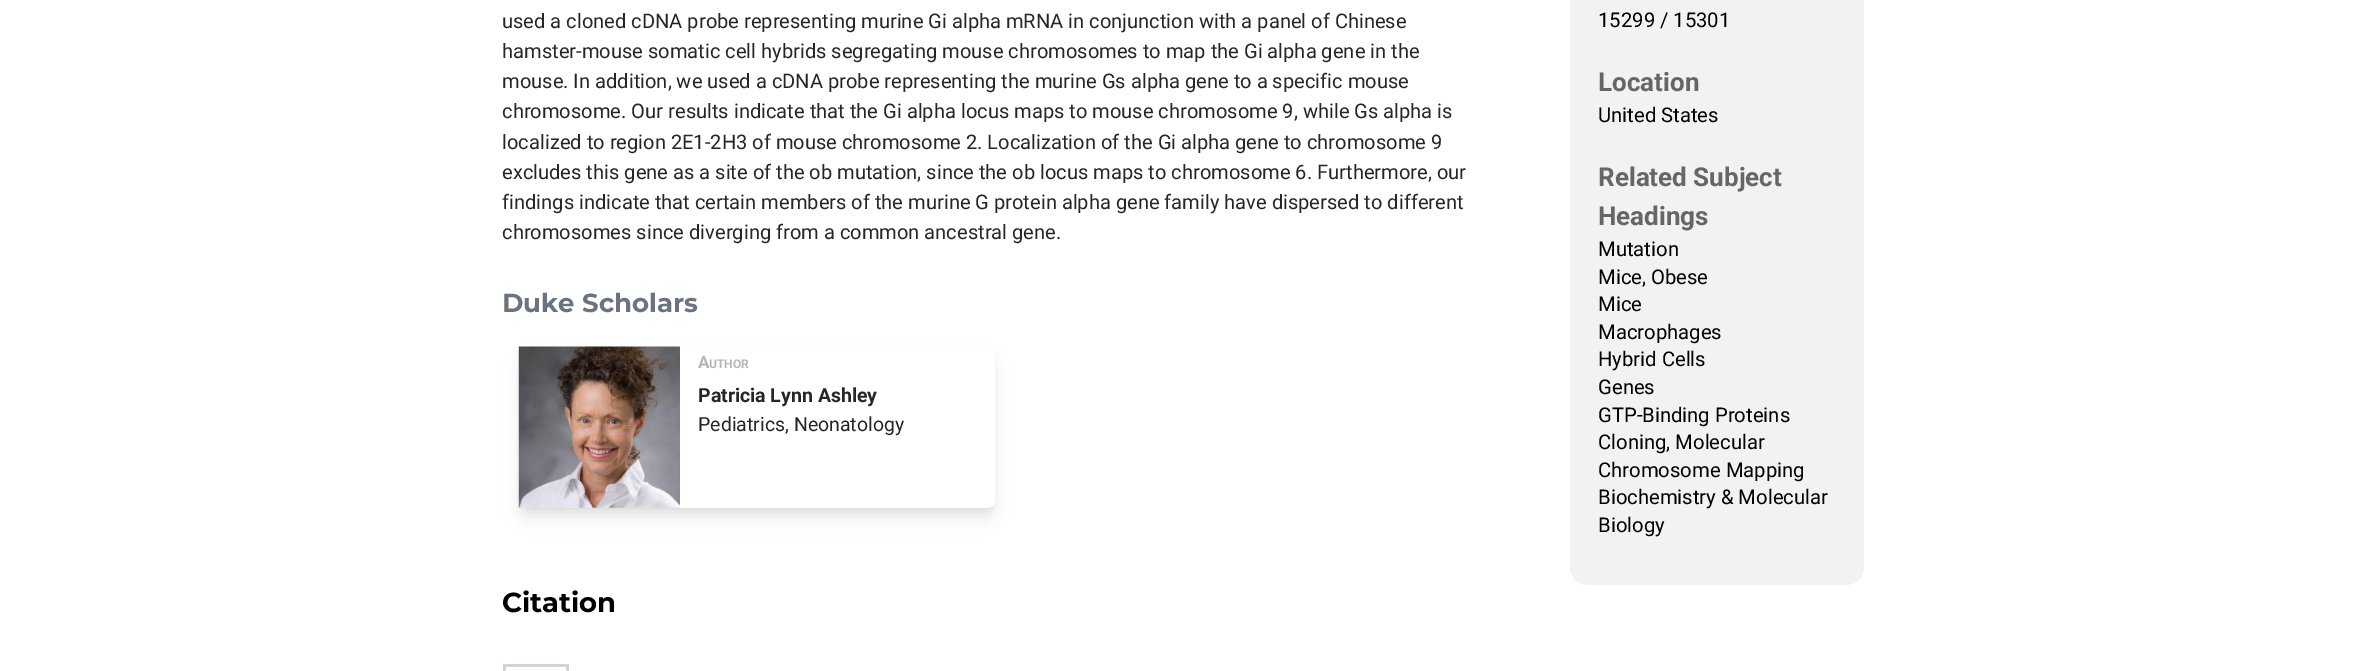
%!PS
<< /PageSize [2366 671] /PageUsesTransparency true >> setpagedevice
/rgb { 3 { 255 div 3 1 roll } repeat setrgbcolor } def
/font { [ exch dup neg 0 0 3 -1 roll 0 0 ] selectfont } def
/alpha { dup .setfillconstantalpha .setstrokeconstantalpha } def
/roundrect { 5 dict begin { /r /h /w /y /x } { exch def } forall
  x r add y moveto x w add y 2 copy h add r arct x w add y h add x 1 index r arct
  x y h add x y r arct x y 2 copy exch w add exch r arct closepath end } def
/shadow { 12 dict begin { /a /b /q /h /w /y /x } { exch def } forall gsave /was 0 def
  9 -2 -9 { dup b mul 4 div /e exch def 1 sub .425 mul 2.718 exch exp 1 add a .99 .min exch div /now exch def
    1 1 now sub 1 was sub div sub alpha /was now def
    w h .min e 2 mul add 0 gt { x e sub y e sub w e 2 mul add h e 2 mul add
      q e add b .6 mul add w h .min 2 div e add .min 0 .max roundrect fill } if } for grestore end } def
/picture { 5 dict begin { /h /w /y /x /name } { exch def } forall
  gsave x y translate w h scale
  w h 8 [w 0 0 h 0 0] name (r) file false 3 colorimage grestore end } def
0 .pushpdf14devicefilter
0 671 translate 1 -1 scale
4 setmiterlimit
255 255 255 rgb
0 0 2366 671 rectfill
gsave
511 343 moveto 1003 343 lineto 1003 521 lineto 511 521 lineto closepath 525 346 moveto 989 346 lineto 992.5 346 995 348.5 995 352 curveto 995 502 lineto 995 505.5 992.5 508 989 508 curveto 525 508 lineto 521.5 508 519 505.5 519 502 curveto 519 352 lineto 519 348.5 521.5 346 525 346 curveto closepath eoclip newpath
0 0 0 rgb
524 356 466 152 1 4 0.1 shadow
grestore
gsave
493 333 moveto 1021 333 lineto 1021 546 lineto 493 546 lineto closepath 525 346 moveto 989 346 lineto 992.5 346 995 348.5 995 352 curveto 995 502 lineto 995 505.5 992.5 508 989 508 curveto 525 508 lineto 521.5 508 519 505.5 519 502 curveto 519 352 lineto 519 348.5 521.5 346 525 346 curveto closepath eoclip newpath
0 0 0 rgb
523 363 468 153 2.5 9.5 0.1 shadow
grestore
(img/1.rgb) 518 346 162 162 picture
[
  [503 664 66 3 209 213 219]
  [566 664 3 7 209 213 219]
  [503 664 3 7 209 213 219]
] { aload pop rgb rectfill } forall
243 242 241 rgb
1570 -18 294 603 18 roundrect fill
/Roboto-Regular 20.1 font
38 38 38 rgb
[
  [(used a cloned cDNA probe representing murine Gi alpha mRNA in conjunction with a panel of Chinese) 502 28]
  [(hamster-mouse somatic cell hybrids segregating mouse chromosomes to map the Gi alpha gene in the) 502 58]
  [(mouse. In addition, we used a cDNA probe representing the murine Gs alpha gene to a specific mouse) 502 88]
  [(chromosome. Our results indicate that the Gi alpha locus maps to mouse chromosome 9, while Gs alpha is) 502 118]
  [(localized to region 2E1-2H3 of mouse chromosome 2. Localization of the Gi alpha gene to chromosome 9) 502 149]
  [(excludes this gene as a site of the ob mutation, since the ob locus maps to chromosome 6. Furthermore, our) 502 179]
  [(findings indicate that certain members of the murine G protein alpha gene family have dispersed to different) 502 209]
  [(chromosomes since diverging from a common ancestral gene.) 502 239]
] { aload pop moveto show } forall
/Montserrat-Bold 26 font
107 114 128 rgb
502 312 moveto (Duke Scholars) show
/Roboto-Bold 17 font
181 181 181 rgb
698 368 moveto (A) show
/Roboto-Bold 12 font
709 368 moveto (UTHOR) show
/Roboto-Bold 19.5 font
38 38 38 rgb
698 402 moveto (Patricia Lynn Ashley) show
/Roboto-Regular 19.5 font
698 431 moveto (Pediatrics, Neonatology) show
/Montserrat-Bold 27.5 font
0 0 0 rgb
502 612 moveto (Citation) show
/Roboto-Regular 20.25 font
1598 27 moveto (15299 / 15301) show
/Roboto-Bold 26 font
102 102 102 rgb
1598 91 moveto (Location) show
/Roboto-Regular 20.25 font
0 0 0 rgb
1598 122 moveto (United States) show
/Roboto-Bold 26 font
102 102 102 rgb
1598 186 moveto (Related Subject) show
1598 225 moveto (Headings) show
/Roboto-Regular 20.25 font
0 0 0 rgb
[
  [(Mutation) 1598 256]
  [(Mice, Obese) 1598 284]
  [(Mice) 1598 311]
  [(Macrophages) 1598 339]
  [(Hybrid Cells) 1598 366]
  [(Genes) 1598 394]
  [(GTP-Binding Proteins) 1598 422]
  [(Cloning, Molecular) 1598 449]
  [(Chromosome Mapping) 1598 477]
  [(Biochemistry & Molecular) 1598 504]
  [(Biology) 1598 532]
] { aload pop moveto show } forall
.poppdf14devicefilter showpage
